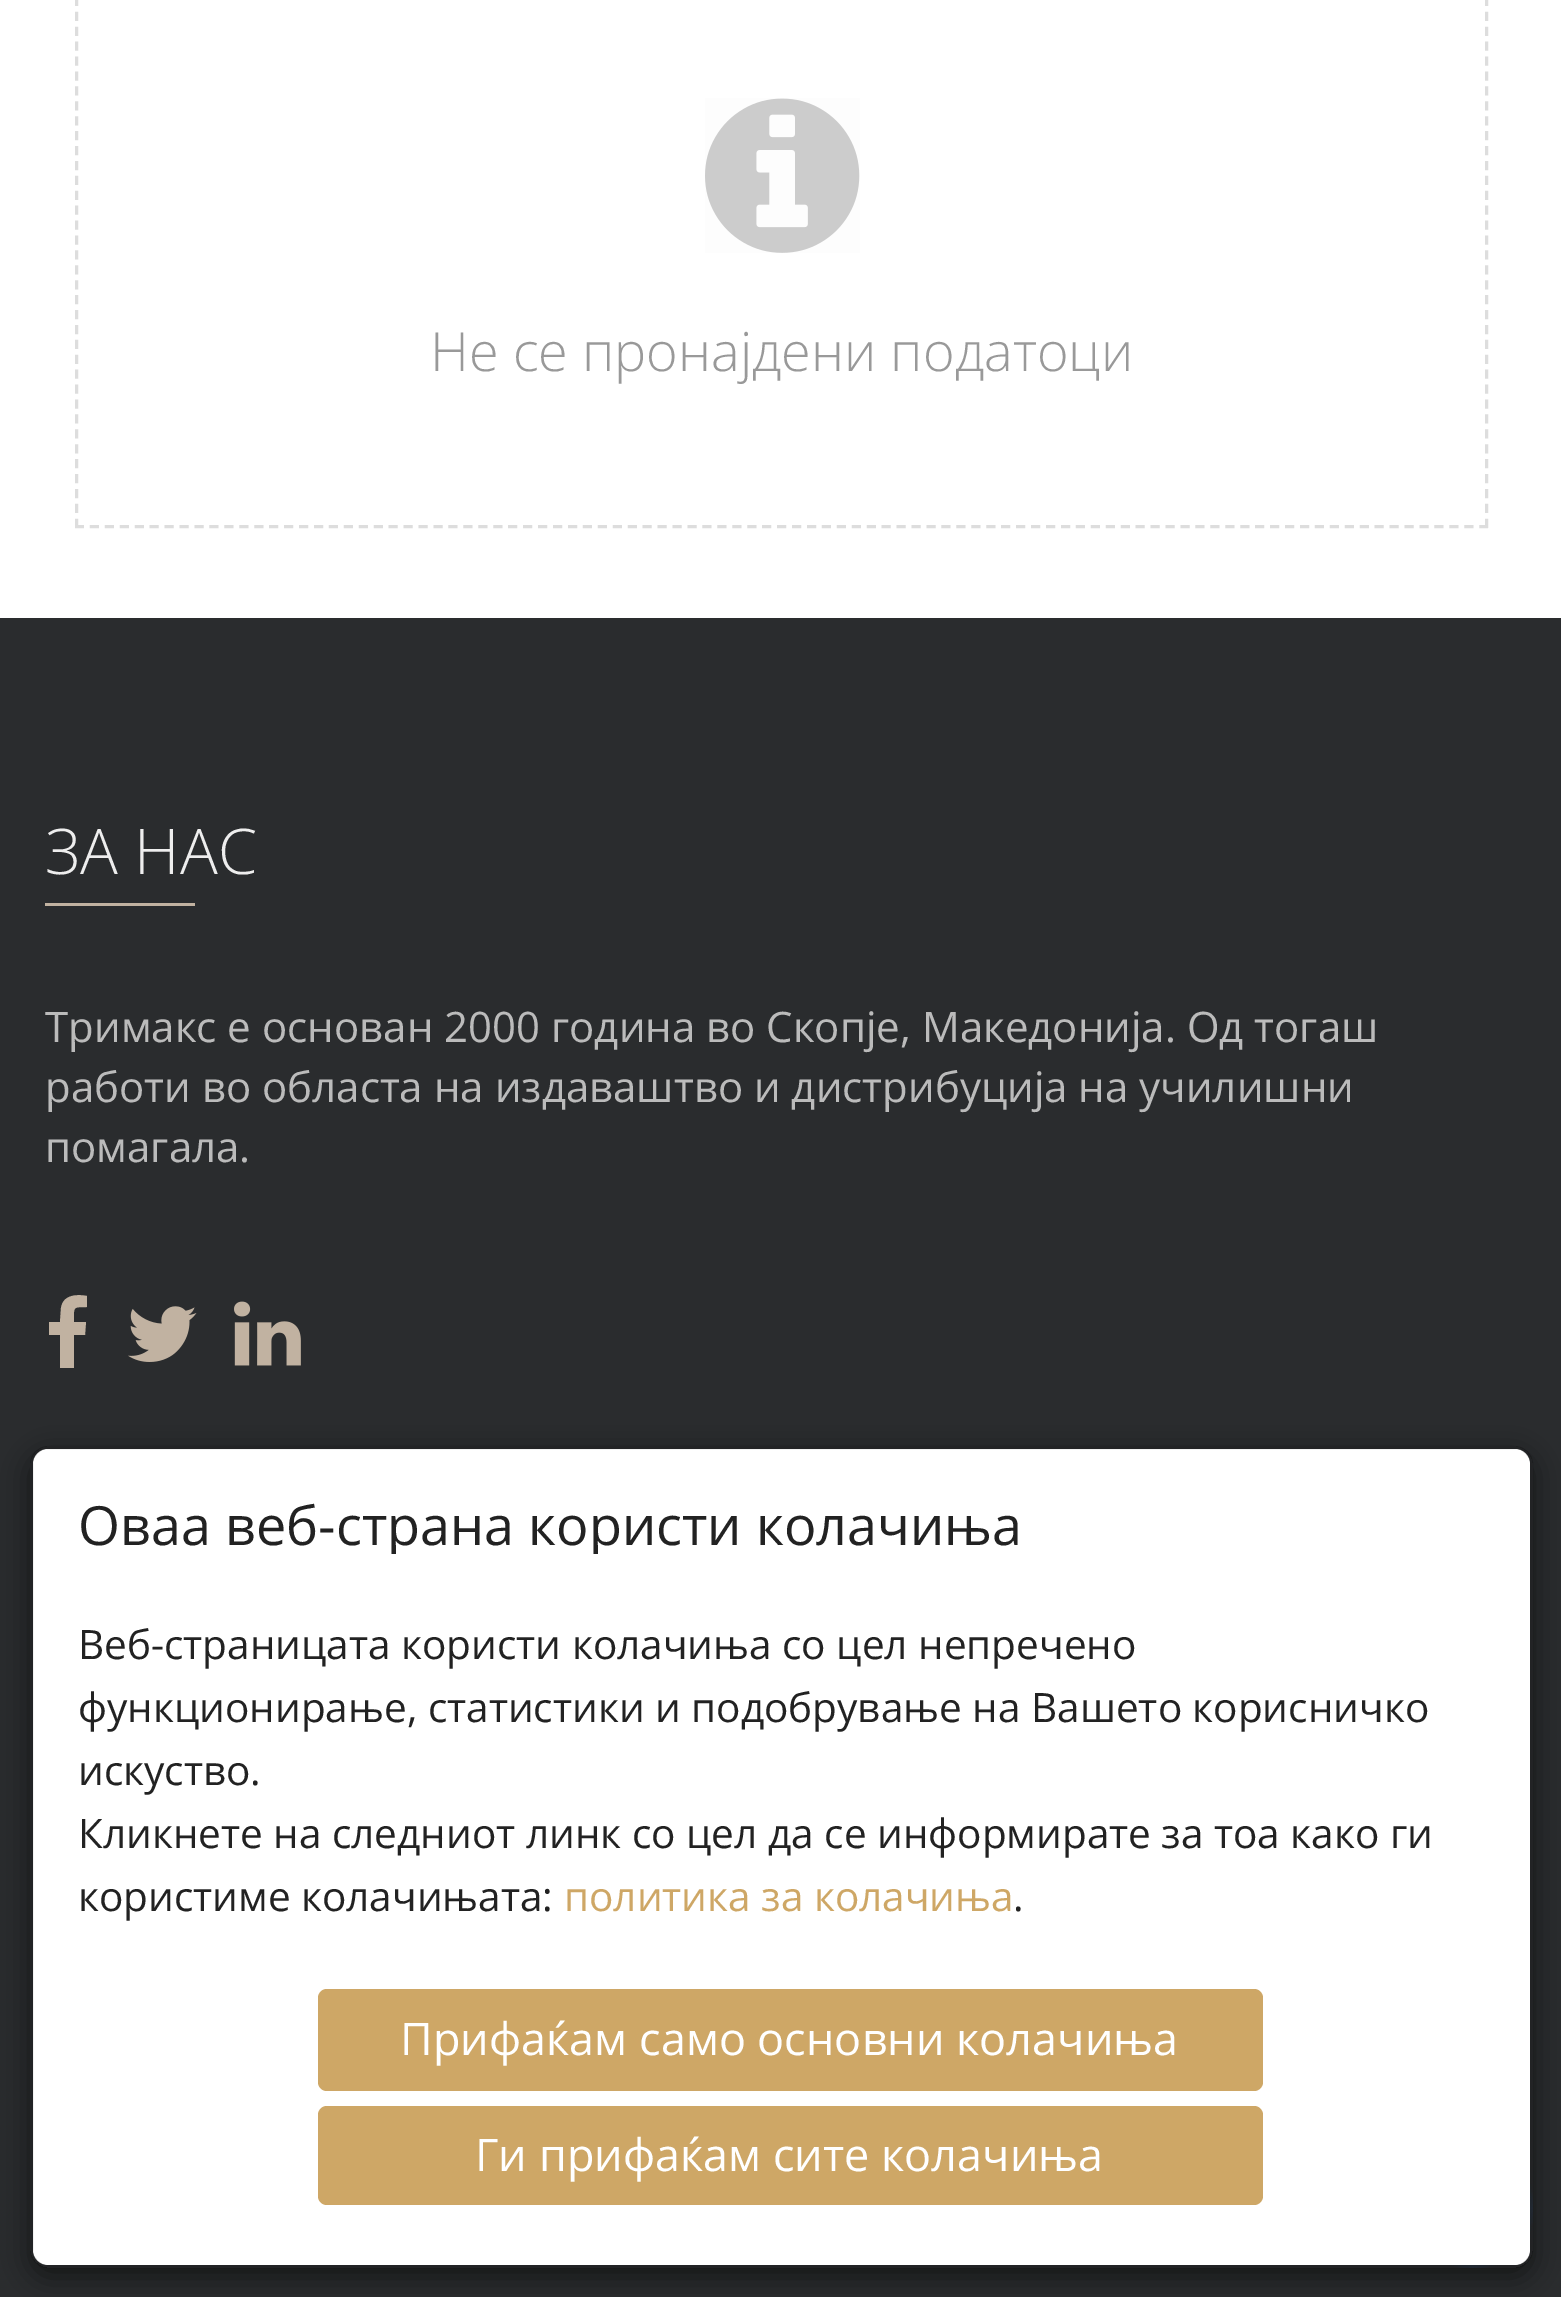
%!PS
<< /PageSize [1561 2297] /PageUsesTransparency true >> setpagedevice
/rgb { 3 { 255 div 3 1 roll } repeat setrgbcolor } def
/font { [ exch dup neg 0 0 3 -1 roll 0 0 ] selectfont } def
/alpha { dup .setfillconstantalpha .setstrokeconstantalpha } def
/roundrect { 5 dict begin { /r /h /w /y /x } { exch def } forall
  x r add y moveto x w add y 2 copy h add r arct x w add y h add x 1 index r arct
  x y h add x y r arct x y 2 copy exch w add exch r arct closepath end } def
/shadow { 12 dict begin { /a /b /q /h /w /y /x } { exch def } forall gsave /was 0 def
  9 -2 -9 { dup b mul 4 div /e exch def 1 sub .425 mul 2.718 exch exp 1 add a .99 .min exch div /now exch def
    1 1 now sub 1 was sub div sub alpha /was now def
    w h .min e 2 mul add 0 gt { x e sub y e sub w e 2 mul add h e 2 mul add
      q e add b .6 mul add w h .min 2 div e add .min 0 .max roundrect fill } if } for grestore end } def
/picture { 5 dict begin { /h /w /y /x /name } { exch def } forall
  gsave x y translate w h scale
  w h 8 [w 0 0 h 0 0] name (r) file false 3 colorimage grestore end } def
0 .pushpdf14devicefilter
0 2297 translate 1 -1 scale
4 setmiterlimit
255 255 255 rgb
0 0 1561 2297 rectfill
221 221 221 rgb
3 setlinewidth
[9 5.91] 0 setdash
1486.5 -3 moveto 1486.5 528 lineto stroke
[9 5.94] 0 setdash
75 526.5 moveto 1488 526.5 lineto stroke
[9 5.91] 0 setdash
76.5 -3 moveto 76.5 528 lineto stroke
(img/1.rgb) 705 98 155 155 picture
42 44 46 rgb
0 618 1561 1679 rectfill
193 178 161 rgb
45 903 150 3 rectfill
87 1296 moveto 87 1307 lineto 72 1307 74 1307 74 1322 curveto 86 1322 lineto 85 1335 lineto 74 1335 lineto 74 1368 lineto 60 1368 lineto 60 1335 lineto 49 1335 lineto 49 1322 lineto 60 1322 lineto 61 1308 lineto 63 1295 76 1294 87 1296 curveto closepath fill
(img/2.rgb) 128 1306 69 56 picture
(img/3.rgb) 234 1301 67 65 picture
(img/4.rgb) 1448 2183 85 85 picture
gsave
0 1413 moveto 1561 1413 lineto 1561 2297 lineto 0 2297 lineto closepath 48 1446 moveto 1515 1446 lineto 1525 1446 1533 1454 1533 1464 curveto 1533 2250 lineto 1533 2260 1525 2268 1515 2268 curveto 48 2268 lineto 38 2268 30 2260 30 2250 curveto 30 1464 lineto 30 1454 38 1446 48 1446 curveto closepath eoclip newpath
0 0 0 rgb
30 1455 1503 822 18 13.5 0.5 shadow
grestore
255 255 255 rgb
33 1449 1497 816 15 roundrect fill
0.2 alpha
0 0 0 rgb
[] 0 setdash
31.5 1447.5 1500 819 16.5 roundrect stroke
1 alpha
206 167 102 rgb
318 1989 945 102 9 roundrect fill
318 2106 945 99 9 roundrect fill
/OpenSans-Light 54 font
153 153 153 rgb
430 371 moveto (Не се пронајдени податоци) show
/OpenSans-Light 63 font
238 238 238 rgb
45 874 moveto (ЗА НАС) show
/OpenSans-Regular 42 font
187 187 187 rgb
[
  [(Тримакс е основан 2000 година во Скопје, Македонија. Од тогаш) 45 1042]
  [(работи во областа на издаваштво и дистрибуција на училишни) 45 1102]
  [(помагала.) 45 1162]
] { aload pop moveto show } forall
gsave
78 1494 1407 60 rectclip
/OpenSans-Regular 54 font
34 34 34 rgb
78 1545 moveto (Оваа веб-страна користи колачиња) show
grestore
/OpenSans-Regular 40.5 font
34 34 34 rgb
[
  [(Веб-страницата користи колачиња со цел непречено) 78 1659]
  [(функционирање, статистики и подобрување на Вашето корисничко) 78 1722]
  [(искуство.) 78 1785]
  [(Кликнете на следниот линк со цел да се информирате за тоа како ги) 78 1848]
  [(користиме колачињата:) 78 1911]
] { aload pop moveto show } forall
206 167 102 rgb
564 1911 moveto (политика за колачиња) show
34 34 34 rgb
1013 1911 moveto (.) show
/OpenSans-Regular 45 font
255 255 255 rgb
400 2055 moveto (Прифаќам само основни колачиња) show
475 2171 moveto (Ги прифаќам сите колачиња) show
.poppdf14devicefilter showpage
